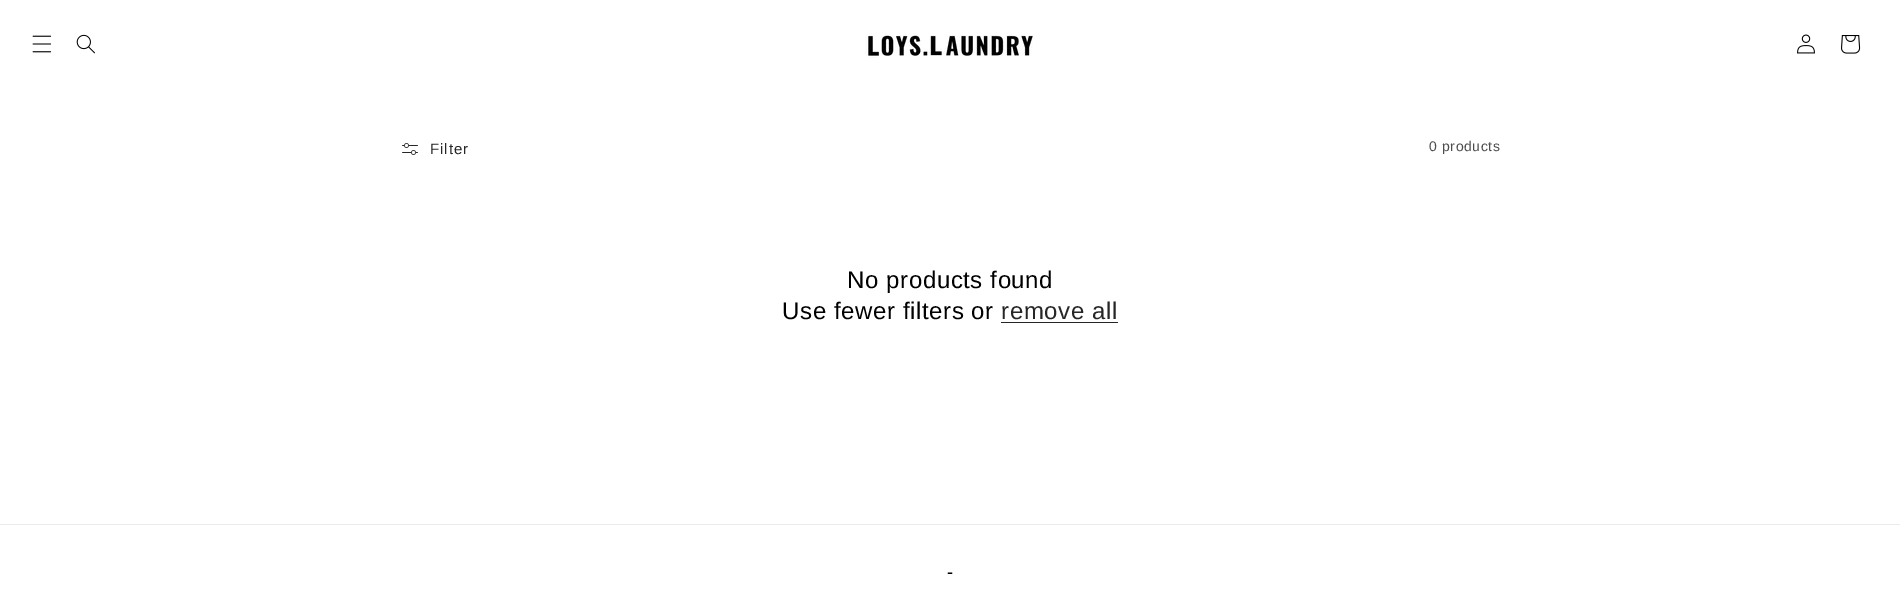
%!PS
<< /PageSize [1900 615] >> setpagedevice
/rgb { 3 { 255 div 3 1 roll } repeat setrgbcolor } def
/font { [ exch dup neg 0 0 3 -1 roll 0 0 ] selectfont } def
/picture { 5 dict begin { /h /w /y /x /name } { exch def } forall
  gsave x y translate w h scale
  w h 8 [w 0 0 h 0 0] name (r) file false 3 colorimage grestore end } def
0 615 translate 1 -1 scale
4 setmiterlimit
255 255 255 rgb
0 0 1900 615 rectfill
(img/1.rgb) 32 35 20 18 picture
(img/2.rgb) 76 34 19 20 picture
(img/3.rgb) 865 33 168 25 picture
(img/4.rgb) 1797 34 18 20 picture
(img/5.rgb) 1841 35 20 19 picture
(img/6.rgb) 402 143 16 12 picture
38 38 38 rgb
1001 322 117 1 rectfill
235 235 235 rgb
0 524 1900 1 rectfill
/LiberationSans-Regular 15 font
38 38 38 rgb
430 154 moveto 1 0 (Filter) ashow
/LiberationSans-Regular 14 font
77 77 77 rgb
1429 151 moveto 0.6 0 (0 products) ashow
/LiberationSans-Regular 24 font
0 0 0 rgb
847 288 moveto 0.6 0 (No products found) ashow
782 319 moveto 0.6 0 (Use fewer filters or) ashow
38 38 38 rgb
1001 319 moveto 0.6 0 (remove all) ashow
/LiberationSans-Regular 18 font
0 0 0 rgb
947 578 moveto 0.6 0 (-) ashow
showpage
